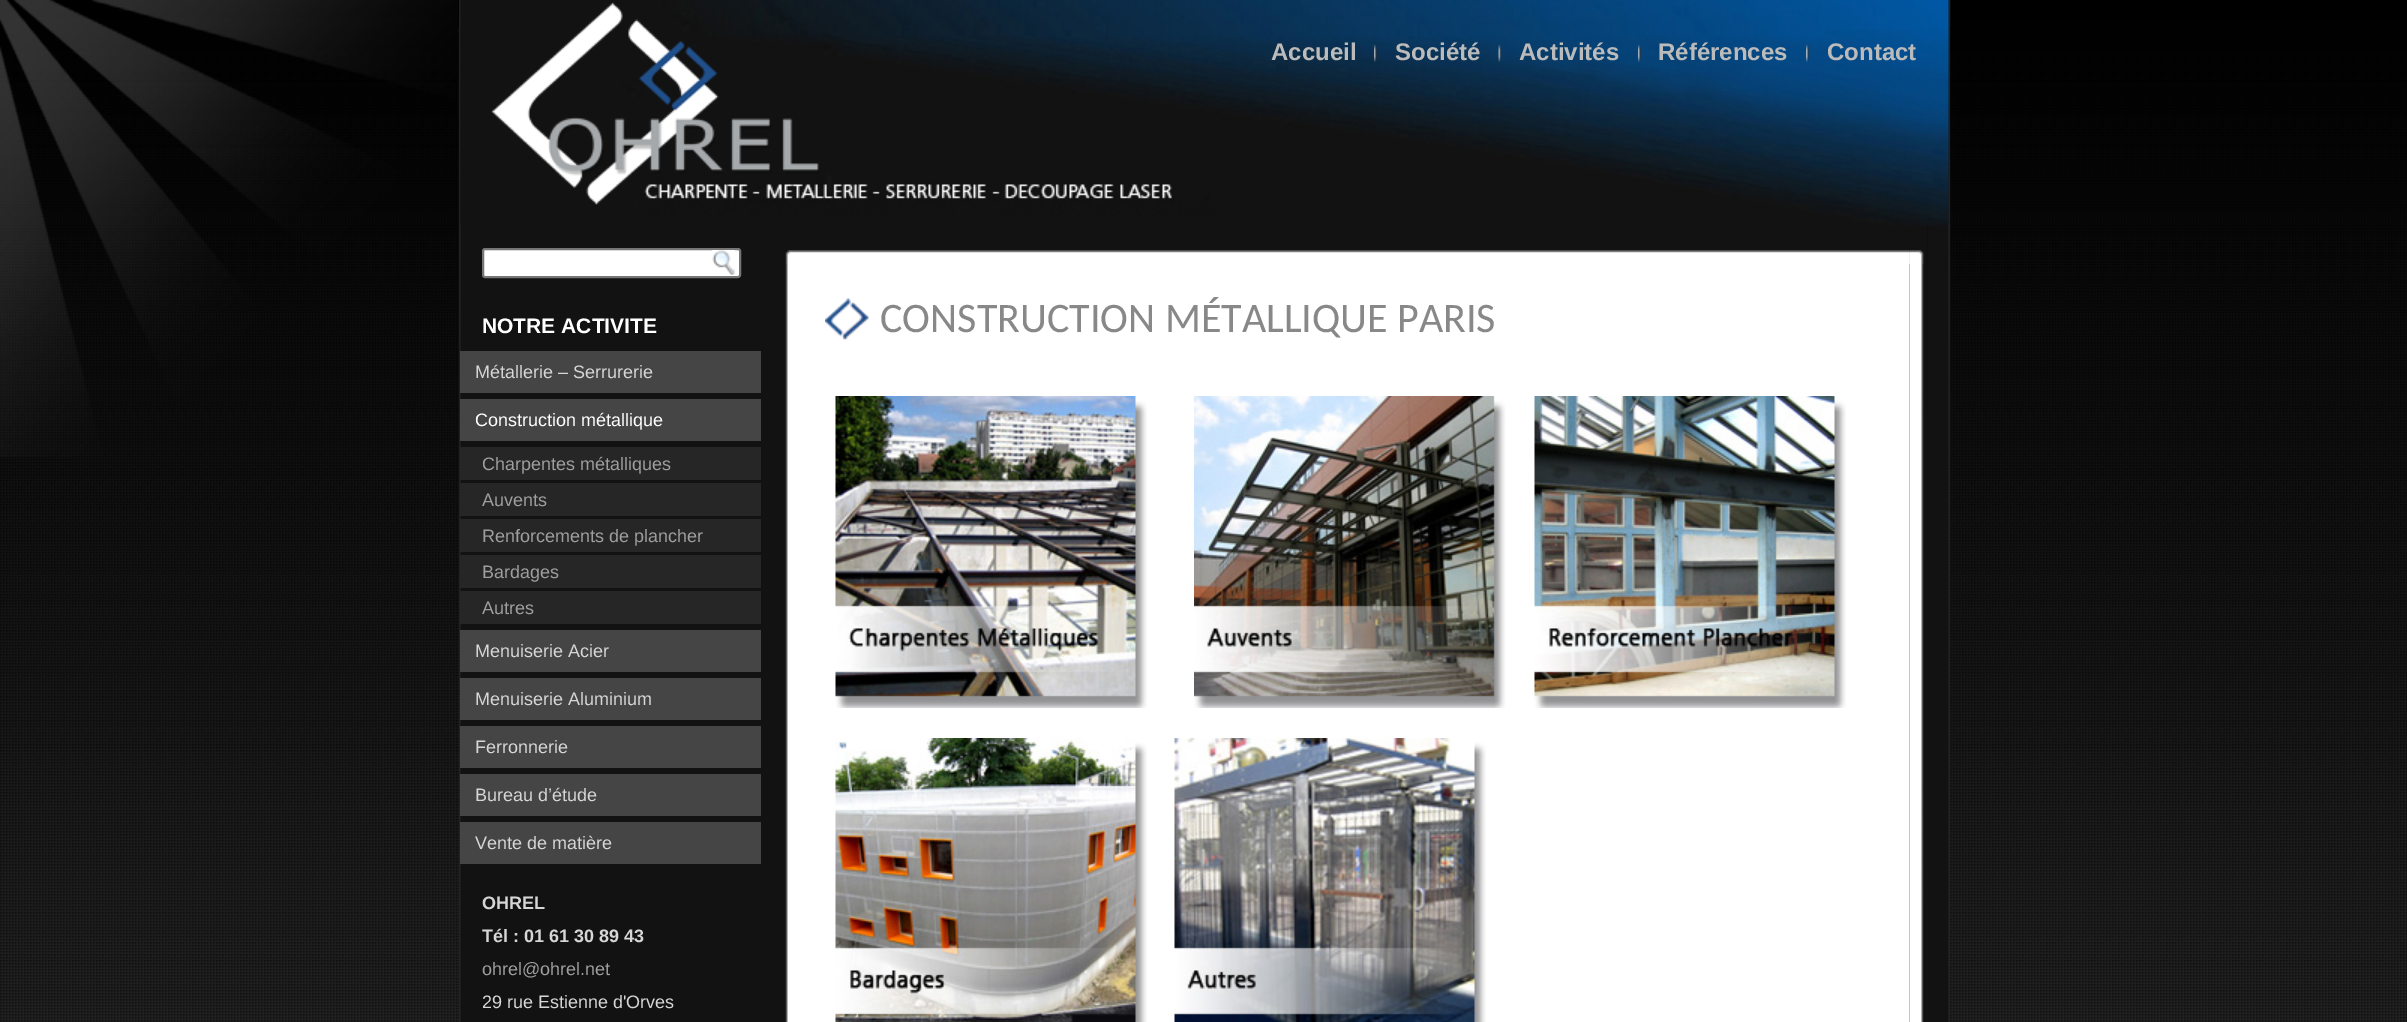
%!PS
<< /PageSize [2407 1022] >> setpagedevice
/rgb { 3 { 255 div 3 1 roll } repeat setrgbcolor } def
/font { [ exch dup neg 0 0 3 -1 roll 0 0 ] selectfont } def
/roundrect { 5 dict begin { /r /h /w /y /x } { exch def } forall
  x r add y moveto x w add y 2 copy h add r arct x w add y h add x 1 index r arct
  x y h add x y r arct x y 2 copy exch w add exch r arct closepath end } def
/picture { 5 dict begin { /h /w /y /x /name } { exch def } forall
  gsave x y translate w h scale
  w h 8 [w 0 0 h 0 0] name (r) file false 3 colorimage grestore end } def
0 1022 translate 1 -1 scale
4 setmiterlimit
255 255 255 rgb
0 0 2407 1022 rectfill
(img/1.rgb) 0 0 2407 1022 picture
(img/2.rgb) 0 0 458 457 picture
(img/3.rgb) 459 0 1 27 picture
(img/4.rgb) 459 0 2 27 picture
(img/5.rgb) 1948 0 2 27 picture
12 12 12 rgb
1950 0 1 27 rectfill
(img/6.rgb) 458 27 1470 995 picture
(img/7.rgb) 1927 27 24 995 picture
(img/8.rgb) 460 0 1489 225 picture
(img/9.rgb) 491 2 329 203 picture
(img/10.rgb) 1374 44 3 18 picture
(img/11.rgb) 1498 44 4 18 picture
(img/12.rgb) 1638 44 3 18 picture
(img/13.rgb) 1806 44 3 18 picture
255 255 255 rgb
483 249 257 28 2 roundrect gsave fill grestore
118 118 118 rgb
2 setlinewidth
stroke
(img/14.rgb) 712 250 23 25 picture
[
  [460 351 301 42 69 69 69]
  [460 399 301 42 69 69 69]
  [460 447 301 33 38 38 38]
  [460 483 301 33 38 38 38]
  [460 519 301 33 38 38 38]
  [460 555 301 33 38 38 38]
  [460 591 301 33 38 38 38]
  [460 630 301 42 69 69 69]
  [460 678 301 42 69 69 69]
  [460 726 301 42 69 69 69]
  [460 774 301 42 69 69 69]
  [460 822 301 42 69 69 69]
] { aload pop rgb rectfill } forall
(img/15.rgb) 785 250 1125 14 picture
(img/16.rgb) 785 250 1125 14 picture
(img/17.rgb) 1909 250 15 14 picture
(img/18.rgb) 1909 250 15 14 picture
(img/19.rgb) 785 264 1125 758 picture
(img/20.rgb) 1909 264 15 758 picture
(img/21.rgb) 825 298 44 42 picture
(img/22.rgb) 835 396 312 312 picture
(img/23.rgb) 1194 396 312 312 picture
(img/24.rgb) 1534 396 312 312 picture
(img/25.rgb) 835 738 312 284 picture
(img/26.rgb) 1174 738 312 284 picture
/LiberationSans-Bold 24 font
187 187 187 rgb
[
  [(Accueil) 1271 60]
  [(Société) 1395 60]
  [(Activités) 1519 60]
  [(Références) 1658 60]
  [(Contact) 1827 60]
] { aload pop moveto show } forall
/LiberationSans-Bold 21 font
255 255 255 rgb
482 333 moveto (NOTRE ACTIVITE) show
/LiberationSans-Regular 18 font
214 214 214 rgb
475 378 moveto (Métallerie – Serrurerie) show
255 255 255 rgb
475 426 moveto (Construction métallique) show
158 158 158 rgb
[
  [(Charpentes métalliques) 482 470]
  [(Auvents) 482 506]
  [(Renforcements de plancher) 482 542]
  [(Bardages) 482 578]
  [(Autres) 482 614]
] { aload pop moveto show } forall
214 214 214 rgb
[
  [(Menuiserie Acier) 475 657]
  [(Menuiserie Aluminium) 475 705]
  [(Ferronnerie) 475 753]
  [(Bureau d’étude) 475 801]
  [(Vente de matière) 475 849]
] { aload pop moveto show } forall
/LiberationSans-Bold 18 font
482 909 moveto (OHREL) show
482 942 moveto (Tél : 01 61 30 89 43) show
/LiberationSans-Regular 18 font
158 158 158 rgb
482 975 moveto (ohrel@ohrel.net) show
214 214 214 rgb
482 1008 moveto (29 rue Estienne d'Orves) show
/Carlito-Regular 42 font
136 136 136 rgb
880 332 moveto (CONSTRUCTION MÉTALLIQUE PARIS) show
showpage
